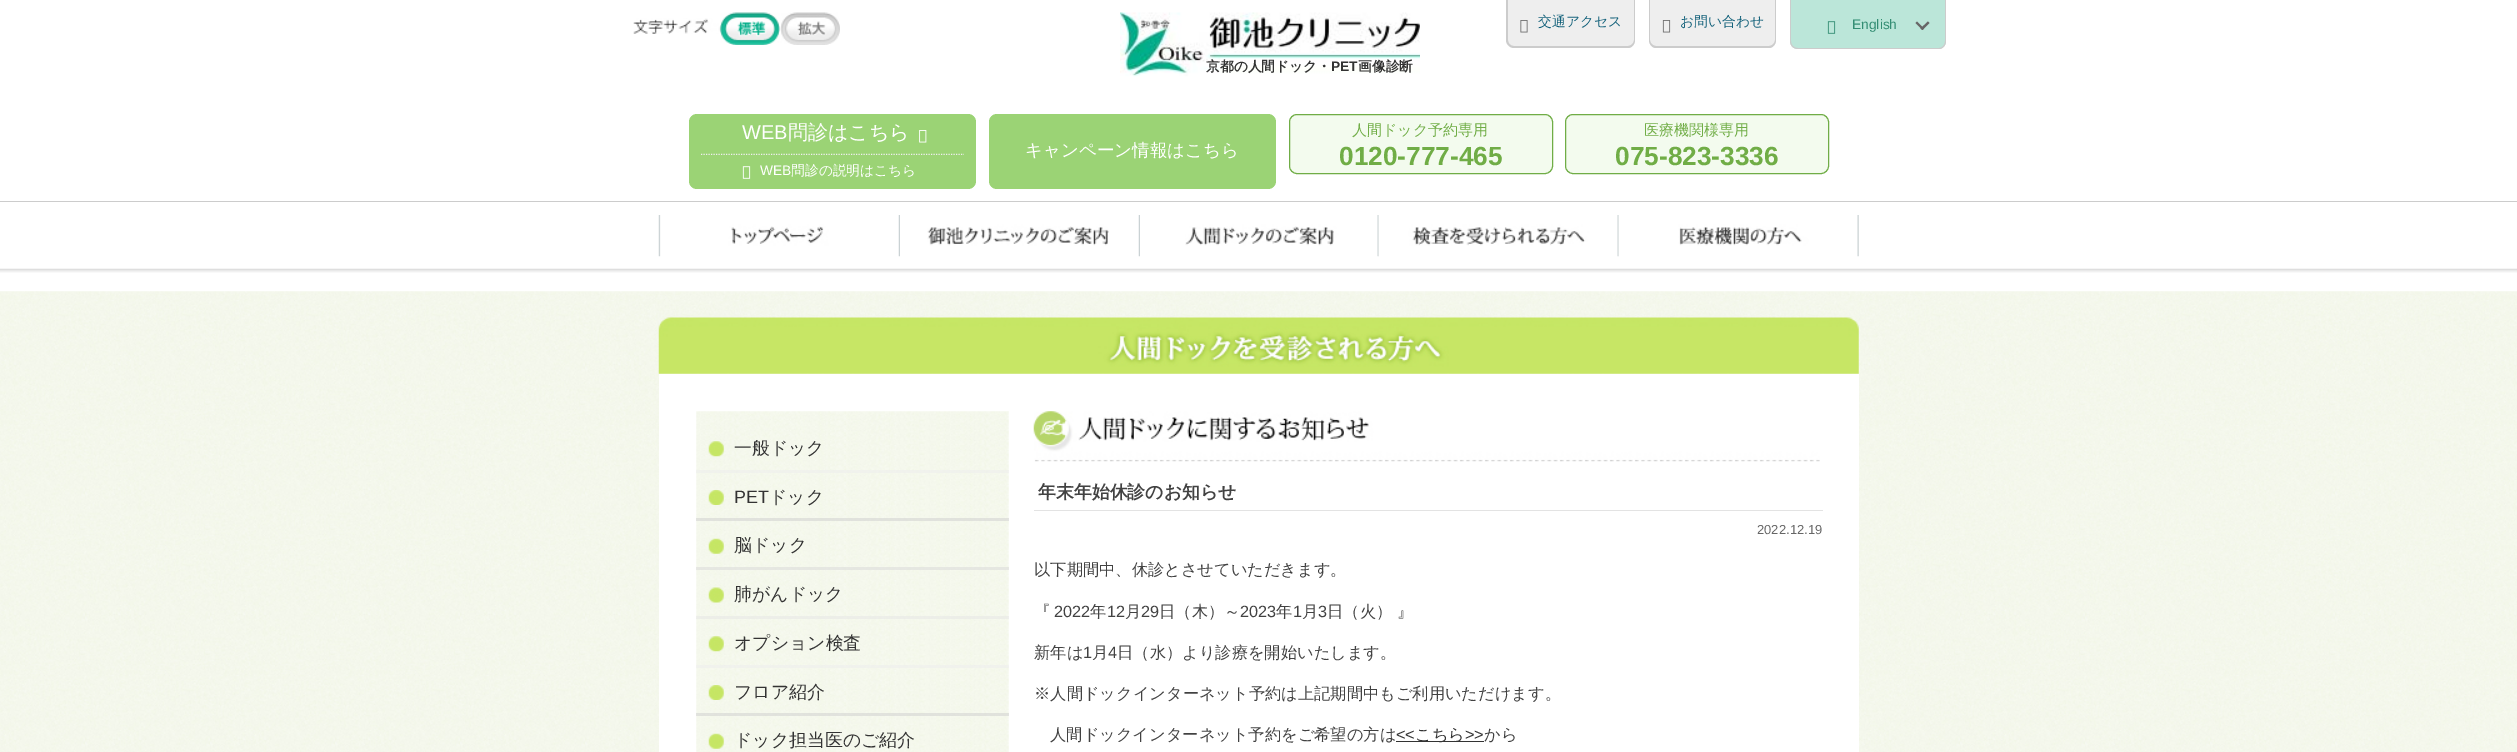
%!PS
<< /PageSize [2517 752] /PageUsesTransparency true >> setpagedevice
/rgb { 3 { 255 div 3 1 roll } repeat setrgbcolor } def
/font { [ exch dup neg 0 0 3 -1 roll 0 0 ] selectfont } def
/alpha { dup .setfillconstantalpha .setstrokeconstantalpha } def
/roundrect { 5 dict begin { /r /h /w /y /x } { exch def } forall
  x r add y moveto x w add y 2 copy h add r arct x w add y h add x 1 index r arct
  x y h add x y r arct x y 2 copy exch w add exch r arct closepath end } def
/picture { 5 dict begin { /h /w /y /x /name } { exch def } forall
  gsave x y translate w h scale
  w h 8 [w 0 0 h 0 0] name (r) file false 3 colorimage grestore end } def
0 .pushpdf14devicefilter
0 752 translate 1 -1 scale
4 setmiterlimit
255 255 255 rgb
0 0 2517 752 rectfill
204 204 204 rgb
0 201 2517 1 rectfill
(img/1.rgb) 633 18 87 16 picture
(img/2.rgb) 720 12 60 33 picture
(img/3.rgb) 780 12 60 33 picture
238 238 238 rgb
1506 0 moveto 1635 0 lineto 1635 40 lineto 1635 44.5 1631.5 48 1627 48 curveto 1514 48 lineto 1509.5 48 1506 44.5 1506 40 curveto closepath fill
204 204 204 rgb
1506 0 moveto 1635 0 lineto 1635 40 lineto 1635 44 1632 48 1628 48 curveto 1514 48 lineto 1510 48 1506 44 1506 40 curveto closepath 1508 0 moveto 1634 0 lineto 1634 40 lineto 1634 43 1631 46 1628 46 curveto 1514 46 lineto 1510 46 1508 43 1508 40 curveto closepath eofill
(img/4.rgb) 1520 20 8 13 picture
238 238 238 rgb
1649 0 moveto 1776 0 lineto 1776 40 lineto 1776 44.5 1772.5 48 1768 48 curveto 1657 48 lineto 1652.5 48 1649 44.5 1649 40 curveto closepath fill
204 204 204 rgb
1649 0 moveto 1776 0 lineto 1776 40 lineto 1776 44 1773 48 1769 48 curveto 1656 48 lineto 1652 48 1649 44 1649 40 curveto closepath 1650 0 moveto 1775 0 lineto 1775 40 lineto 1775 43 1772 46 1769 46 curveto 1656 46 lineto 1653 46 1650 43 1650 40 curveto closepath eofill
(img/5.rgb) 1662 20 9 13 picture
187 230 217 rgb
1790 0 moveto 1946 0 lineto 1946 41 lineto 1946 45.5 1942.5 49 1938 49 curveto 1798 49 lineto 1793.5 49 1790 45.5 1790 41 curveto closepath fill
204 204 204 rgb
1790 0 moveto 1946 0 lineto 1946 41 lineto 1946 45 1943 49 1939 49 curveto 1798 49 lineto 1793 49 1790 45 1790 41 curveto closepath 1791 0 moveto 1945 0 lineto 1945 41 lineto 1945 45 1942 48 1939 48 curveto 1798 48 lineto 1794 48 1791 45 1791 41 curveto closepath eofill
(img/6.rgb) 1827 21 9 13 picture
102 102 102 rgb
1922.5 30 moveto 1915.5 23 lineto 1917 21.5 lineto 1924 28.5 lineto closepath fill
1922.5 30 moveto 1920.5 28.5 lineto 1928 21.5 lineto 1929.5 23 lineto closepath fill
(img/7.rgb) 1120 12 300 65 picture
155 211 117 rgb
689 114 287 75 8 roundrect fill
(img/8.rgb) 919 130 8 13 picture
238 238 238 rgb
1.2 setlinewidth
[1.25 1.25] 0 setdash
701 154.5 moveto 964 154.5 lineto stroke
155 211 117 rgb
701 155 263 1 rectfill
(img/9.rgb) 742 166 9 13 picture
989 114 287 75 8 roundrect fill
243 251 238 rgb
1289.5 114.5 263 59 7.5 roundrect gsave fill grestore
112 173 70 rgb
1 setlinewidth
[] 0 setdash
stroke
243 251 238 rgb
1565.5 114.5 263 59 7.5 roundrect gsave fill grestore
112 173 70 rgb
stroke
(img/10.rgb) 0 268 2517 5 picture
(img/11.rgb) 658 215 242 42 picture
(img/12.rgb) 927 215 213 42 picture
(img/13.rgb) 1185 215 194 42 picture
(img/14.rgb) 1378 215 241 42 picture
(img/15.rgb) 1618 215 241 42 picture
(img/16.rgb) 0 291 2517 461 picture
(img/17.rgb) 658 316 1201 58 picture
255 255 255 rgb
659 374 1200 378 rectfill
(img/18.rgb) 696 411 313 341 picture
0.5 alpha
237 237 237 rgb
696 470 313 3 rectfill
1 alpha
(img/19.rgb) 708 441 16 16 picture
0.5 alpha
205 205 205 rgb
696 518 313 3 rectfill
1 alpha
(img/20.rgb) 708 490 16 15 picture
0.5 alpha
215 215 215 rgb
696 567 313 3 rectfill
1 alpha
(img/21.rgb) 708 538 16 16 picture
0.5 alpha
229 229 229 rgb
696 616 313 3 rectfill
1 alpha
(img/22.rgb) 708 587 16 16 picture
0.5 alpha
237 237 237 rgb
696 665 313 3 rectfill
1 alpha
(img/23.rgb) 708 636 16 16 picture
0.5 alpha
205 205 205 rgb
696 713 313 3 rectfill
1 alpha
(img/24.rgb) 708 685 16 15 picture
(img/25.rgb) 708 733 16 16 picture
(img/26.rgb) 1033 411 787 51 picture
227 227 227 rgb
1034 510 789 1 rectfill
51 51 51 rgb
1396 741 88 1 rectfill
/WenQuanYiZenHei-Medium 13.75 font
22 99 124 rgb
1538 26 moveto (交通アクセス) show
1680 26 moveto (お問い合わせ) show
/LiberationSans-Regular 13.75 font
51 141 115 rgb
1852 29 moveto (English) show
/WenQuanYiZenHei-Bold 13.75 font
51 51 51 rgb
1206 71 moveto (京都の人間ドック・) show
/LiberationSans-Bold 13.75 font
1331 71 moveto (PET) show
/WenQuanYiZenHei-Bold 13.75 font
1358 71 moveto (画像診断) show
/LiberationSans-Regular 20 font
255 255 255 rgb
742 139 moveto (WEB) show
/WenQuanYiZenHei-Medium 20 font
788 139 moveto (問診はこちら) show
/LiberationSans-Regular 13.75 font
760 175 moveto (WEB) show
/WenQuanYiZenHei-Medium 13.75 font
791 175 moveto (問診の説明はこちら) show
/WenQuanYiZenHei-Medium 17.5 font
1025 156 moveto (キャンペーン情報はこちら) show
/WenQuanYiZenHei-Medium 15 font
112 173 70 rgb
1352 135 moveto (人間ドック予約専用) show
/LiberationSans-Bold 26.25 font
1339 165 moveto (0120-777-465) show
/WenQuanYiZenHei-Medium 15 font
1644 135 moveto (医療機関様専用) show
/LiberationSans-Bold 26.25 font
1615 165 moveto (075-823-3336) show
/WenQuanYiZenHei-Medium 17.9 font
51 51 51 rgb
734 454 moveto (一般ドック) show
/LiberationSans-Regular 17.9 font
734 503 moveto (PET) show
/WenQuanYiZenHei-Medium 17.9 font
[
  [(ドック) 769 503]
  [(脳ドック) 734 551]
  [(肺がんドック) 734 600]
  [(オプション検査) 734 649]
  [(フロア紹介) 734 698]
  [(ドック担当医のご紹介) 734 746]
] { aload pop moveto show } forall
/WenQuanYiZenHei-Bold 17.9 font
66 66 66 rgb
1038 498 moveto (年末年始休診のお知らせ) show
/LiberationSans-Regular 13 font
102 102 102 rgb
1757 534 moveto (2022.12.19) show
/WenQuanYiZenHei-Medium 16.25 font
66 66 66 rgb
1034 575 moveto (以下期間中、休診とさせていただきます。) show
1034 617 moveto (『) show
/LiberationSans-Regular 16.25 font
1054 617 moveto (2022) show
/WenQuanYiZenHei-Medium 16.25 font
1090 617 moveto (年) show
/LiberationSans-Regular 16.25 font
1107 617 moveto (12) show
/WenQuanYiZenHei-Medium 16.25 font
1125 617 moveto (月) show
/LiberationSans-Regular 16.25 font
1141 617 moveto (29) show
/WenQuanYiZenHei-Medium 16.25 font
1159 617 moveto (日（木）～) show
/LiberationSans-Regular 16.25 font
1240 617 moveto (2023) show
/WenQuanYiZenHei-Medium 16.25 font
1276 617 moveto (年) show
/LiberationSans-Regular 16.25 font
1293 617 moveto (1) show
/WenQuanYiZenHei-Medium 16.25 font
1302 617 moveto (月) show
/LiberationSans-Regular 16.25 font
1318 617 moveto (3) show
/WenQuanYiZenHei-Medium 16.25 font
1327 617 moveto (日（火） 』) show
1034 658 moveto (新年は) show
/LiberationSans-Regular 16.25 font
1083 658 moveto (1) show
/WenQuanYiZenHei-Medium 16.25 font
1092 658 moveto (月) show
/LiberationSans-Regular 16.25 font
1108 658 moveto (4) show
/WenQuanYiZenHei-Medium 16.25 font
[
  [(日（水）より診療を開始いたします。) 1117 658]
  [(※人間ドックインターネット予約は上記期間中もご利用いただけます。) 1034 699]
  [(人間ドックインターネット予約をご希望の方は) 1050 740]
] { aload pop moveto show } forall
/LiberationSans-Regular 16.25 font
51 51 51 rgb
1396 740 moveto (<<) show
/WenQuanYiZenHei-Medium 16.25 font
1415 740 moveto (こちら) show
/LiberationSans-Regular 16.25 font
1465 740 moveto (>>) show
/WenQuanYiZenHei-Medium 16.25 font
66 66 66 rgb
1484 740 moveto (から) show
.poppdf14devicefilter showpage
